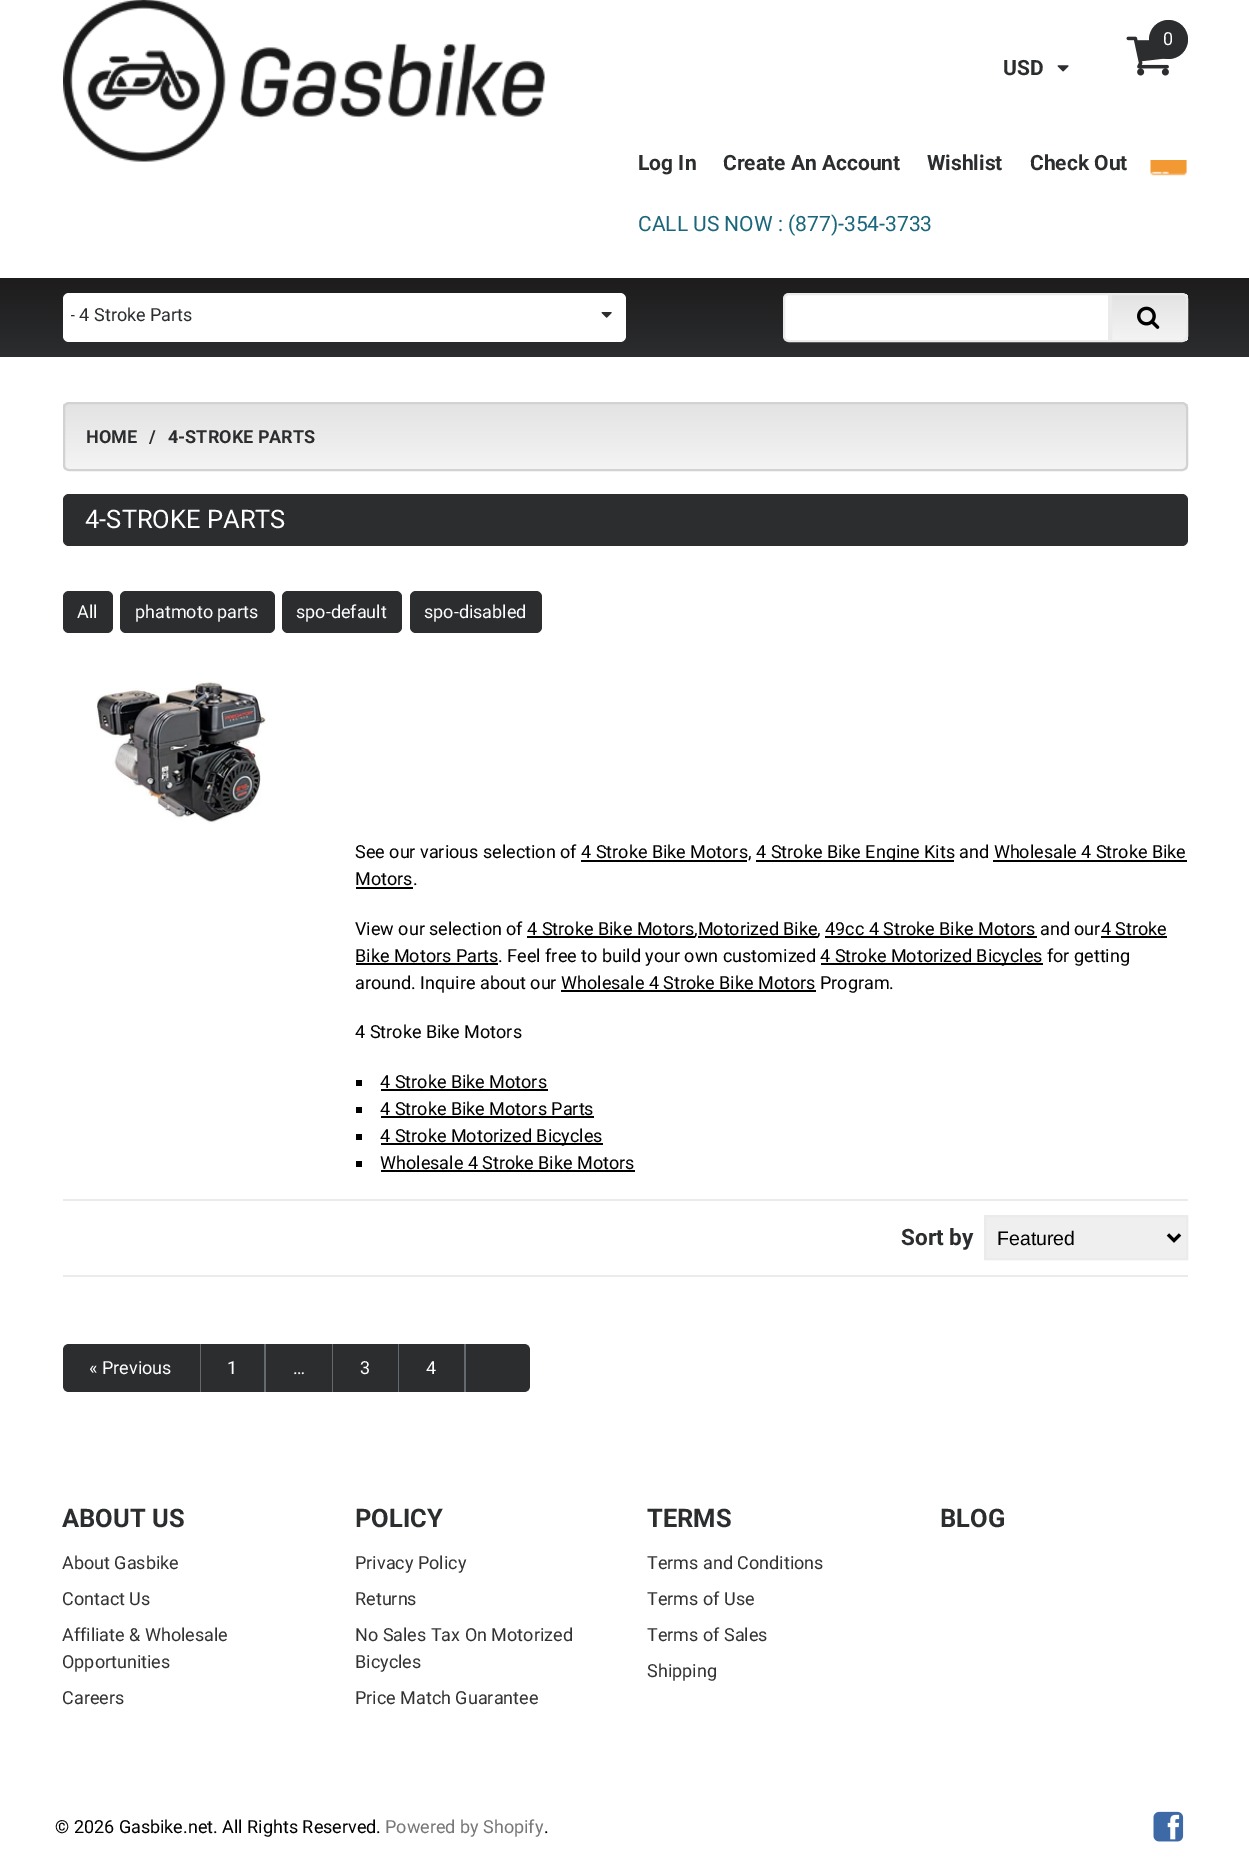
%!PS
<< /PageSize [1249 1867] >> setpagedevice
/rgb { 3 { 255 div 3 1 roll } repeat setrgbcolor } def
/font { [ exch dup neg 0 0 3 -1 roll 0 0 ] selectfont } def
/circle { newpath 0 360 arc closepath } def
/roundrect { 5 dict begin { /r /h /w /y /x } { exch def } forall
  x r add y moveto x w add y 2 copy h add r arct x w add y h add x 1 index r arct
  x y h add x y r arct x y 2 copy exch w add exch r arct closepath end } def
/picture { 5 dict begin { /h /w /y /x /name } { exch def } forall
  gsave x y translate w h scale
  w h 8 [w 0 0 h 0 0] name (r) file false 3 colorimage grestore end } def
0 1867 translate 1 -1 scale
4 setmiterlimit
255 255 255 rgb
0 0 1249 1867 rectfill
(img/1.rgb) 63 0 482 162 picture
(img/2.rgb) 1126 36 44 40 picture
43 45 47 rgb
1168.5 39.5 19.5 circle fill
(img/3.rgb) 1057 65 12 7 picture
(img/4.rgb) 1150 160 37 16 picture
gsave 0 278 moveto 1249 278 lineto 1249 357 lineto 0 357 lineto closepath clip newpath
<< /ShadingType 2 /ColorSpace /DeviceRGB /Coords [625 277 625 357] /Extend [true true] /Function << /FunctionType 2 /Domain [0 1] /C0 [0.118 0.11 0.114] /C1 [0.169 0.176 0.184] /N 1 >> >> shfill grestore
255 255 255 rgb
63 293 563 49 6 roundrect fill
(img/5.rgb) 601 312 11 6 picture
789 294 moveto 1109 294 lineto 1109 341 lineto 789 341 lineto 786 341 784 339 784 336 curveto 784 299 lineto 784 296 786 294 789 294 curveto closepath gsave fill grestore
235 235 235 rgb
2 setlinewidth
stroke
gsave
1110 293 moveto 1182 293 lineto 1185.5 293 1188 295.5 1188 299 curveto 1188 336 lineto 1188 339.5 1185.5 342 1182 342 curveto 1110 342 lineto closepath clip newpath
gsave 1112 294 moveto 1188 294 lineto 1188 341 lineto 1112 341 lineto closepath clip newpath
<< /ShadingType 2 /ColorSpace /DeviceRGB /Coords [1149 294 1149 341] /Extend [true true] /Function << /FunctionType 2 /Domain [0 1] /C0 [0.89 0.89 0.89] /C1 [0.957 0.957 0.957] /N 1 >> >> shfill grestore
grestore
1111 294 moveto 1182 294 lineto 1185 294 1187 296 1187 299 curveto 1187 336 lineto 1187 339 1185 341 1182 341 curveto 1111 341 lineto closepath stroke
(img/6.rgb) 1137 306 23 23 picture
gsave
63 402 1125 69 6 roundrect clip newpath
gsave 63 404 moveto 1188 404 lineto 1188 470 lineto 63 470 lineto closepath clip newpath
<< /ShadingType 2 /ColorSpace /DeviceRGB /Coords [626 403 626 470] /Extend [true true] /Function << /FunctionType 2 /Domain [0 1] /C0 [0.89 0.89 0.89] /C1 [0.957 0.957 0.957] /N 1 >> >> shfill grestore
grestore
210 210 210 rgb
64 403 1123 67 5 roundrect stroke
43 45 47 rgb
63 494 1125 52 6 roundrect fill
63 591 50 42 6 roundrect fill
120 591 155 42 6 roundrect fill
282 591 120 42 6 roundrect fill
410 591 132 42 6 roundrect fill
(img/7.rgb) 96 681 170 143 picture
[
  [756 860 198 2 0 0 0]
  [581 860 166 2 0 0 0]
  [993 860 194 2 0 0 0]
  [356 887 57 2 0 0 0]
  [527 936 168 2 0 0 0]
  [698 936 120 2 0 0 0]
  [825 936 212 2 0 0 0]
  [1101 936 66 2 0 0 0]
  [356 963 142 2 0 0 0]
  [821 963 222 2 0 0 0]
  [561 990 255 2 0 0 0]
  [356 1080 6 6 0 0 0]
  [381 1089 167 2 0 0 0]
  [356 1107 6 6 0 0 0]
  [381 1116 213 2 0 0 0]
  [356 1134 6 6 0 0 0]
  [381 1143 222 2 0 0 0]
  [356 1161 6 6 0 0 0]
  [381 1170 254 2 0 0 0]
  [63 1199 1125 2 235 235 235]
  [63 1275 1125 2 235 235 235]
] { aload pop rgb rectfill } forall
239 239 239 rgb
985 1216 moveto 1187 1216 lineto 1187 1259 lineto 985 1259 lineto closepath gsave fill grestore
235 235 235 rgb
stroke
0 0 0 rgb
3 setlinewidth
1168 1234.5 moveto 1174 1240.5 lineto 1180 1234.5 lineto stroke
43 45 47 rgb
69 1344 moveto 200 1344 lineto 200 1392 lineto 69 1392 lineto 65.5 1392 63 1389.5 63 1386 curveto 63 1350 lineto 63 1346.5 65.5 1344 69 1344 curveto closepath fill
[
  [200 1344 1 48 99 105 110]
  [201 1344 63 48 43 45 47]
  [266 1344 66 48 43 45 47]
  [264 1344 2 48 99 105 110]
  [332 1344 1 48 99 105 110]
  [333 1344 65 48 43 45 47]
  [398 1344 1 48 99 105 110]
  [399 1344 65 48 43 45 47]
] { aload pop rgb rectfill } forall
464 1344 moveto 524 1344 lineto 527.5 1344 530 1346.5 530 1350 curveto 530 1386 lineto 530 1389.5 527.5 1392 524 1392 curveto 464 1392 lineto closepath fill
99 105 110 rgb
464 1344 2 48 rectfill
(img/8.rgb) 1153 1811 31 31 picture
/Roboto-Regular 18 font
255 255 255 rgb
1163 45 moveto (0) show
/Roboto-Bold 21 font
43 45 47 rgb
[
  [(USD) 1003 75]
  [(Log In) 638 170]
  [(Create An Account) 723 170]
  [(Wishlist) 927 170]
  [(Check Out) 1030 170]
] { aload pop moveto show } forall
/Roboto-Regular 21 font
26 102 122 rgb
638 231 moveto (CALL US NOW : \(877\)-354-3733) show
gsave
71 293 510 45 rectclip
/Roboto-Regular 18 font
43 45 47 rgb
70 321 moveto (- 4 Stroke Parts) show
grestore
/Roboto-Bold 18 font
43 45 47 rgb
[
  [(HOME) 86 443]
  [(/) 149 443]
  [(4-STROKE PARTS) 168 443]
] { aload pop moveto show } forall
/Roboto-Regular 25.5 font
255 255 255 rgb
85 528 moveto (4-STROKE PARTS) show
/Roboto-Regular 18 font
[
  [(All) 77 618]
  [(phatmoto parts) 135 618]
  [(spo-default) 296 618]
  [(spo-disabled) 424 618]
] { aload pop moveto show } forall
0 0 0 rgb
[
  [(See our various selection of 4 Stroke Bike Motors,) 355 858]
  [(4 Stroke Bike Engine Kits and Wholesale 4 Stroke Bike) 756 858]
  [(Motors.) 355 885]
  [(View our selection of 4 Stroke Bike Motors) 355 935]
  [(,Motorized Bike) 694 935]
  [(, 49cc 4 Stroke Bike Motors and our4 Stroke) 817 935]
  [(Bike Motors Parts. Feel free to build your own customized) 355 962]
  [(4 Stroke Motorized Bicycles for getting) 820 962]
  [(around. Inquire about our Wholesale 4 Stroke Bike Motors Program.) 355 989]
  [(4 Stroke Bike Motors) 355 1038]
  [(4 Stroke Bike Motors) 380 1088]
  [(4 Stroke Bike Motors Parts) 380 1115]
  [(4 Stroke Motorized Bicycles) 380 1142]
  [(Wholesale 4 Stroke Bike Motors) 380 1169]
] { aload pop moveto show } forall
/Roboto-Bold 22.5 font
43 45 47 rgb
901 1245 moveto (Sort by) show
/LiberationSans-Regular 19.5 font
0 0 0 rgb
997 1245 moveto (Featured) show
/Roboto-Regular 18 font
255 255 255 rgb
[
  [(« Previous) 89 1374]
  [(1) 227 1374]
  [(…) 293 1374]
  [(3) 360 1374]
  [(4) 426 1374]
] { aload pop moveto show } forall
/Roboto-Bold 25.5 font
43 45 47 rgb
62 1527 moveto (ABOUT US) show
/Roboto-Regular 18 font
50 50 50 rgb
[
  [(About Gasbike) 62 1569]
  [(Contact Us) 62 1605]
  [(Affiliate & Wholesale) 62 1641]
  [(Opportunities) 62 1668]
  [(Careers) 62 1704]
] { aload pop moveto show } forall
/Roboto-Bold 25.5 font
43 45 47 rgb
355 1527 moveto (POLICY) show
/Roboto-Regular 18 font
50 50 50 rgb
[
  [(Privacy Policy) 355 1569]
  [(Returns) 355 1605]
  [(No Sales Tax On Motorized) 355 1641]
  [(Bicycles) 355 1668]
  [(Price Match Guarantee) 355 1704]
] { aload pop moveto show } forall
/Roboto-Bold 25.5 font
43 45 47 rgb
647 1527 moveto (TERMS) show
/Roboto-Regular 18 font
50 50 50 rgb
[
  [(Terms and Conditions) 647 1569]
  [(Terms of Use) 647 1605]
  [(Terms of Sales) 647 1641]
  [(Shipping) 647 1677]
] { aload pop moveto show } forall
/Roboto-Bold 25.5 font
43 45 47 rgb
940 1527 moveto (BLOG) show
/Roboto-Regular 18 font
0 0 0 rgb
55 1833 moveto (© 2026 Gasbike.net. All Rights Reserved.) show
119 119 119 rgb
385 1833 moveto (Powered by Shopify) show
0 0 0 rgb
544 1833 moveto (.) show
showpage
